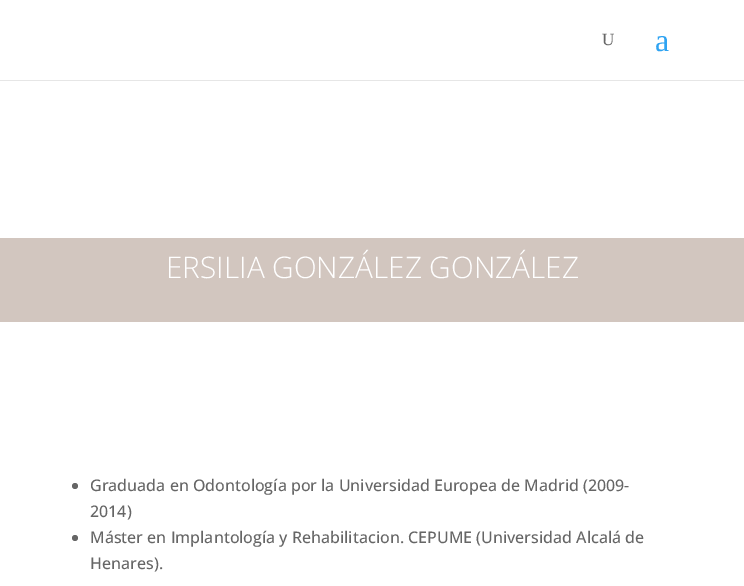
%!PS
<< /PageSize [744 586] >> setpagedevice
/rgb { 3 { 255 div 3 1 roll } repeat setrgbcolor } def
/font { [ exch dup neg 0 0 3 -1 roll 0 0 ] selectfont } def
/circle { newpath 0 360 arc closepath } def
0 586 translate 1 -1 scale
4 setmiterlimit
255 255 255 rgb
0 0 744 586 rectfill
230 230 230 rgb
0 80 744 1 rectfill
210 198 191 rgb
0 238 744 84 rectfill
102 102 102 rgb
75 486 3 circle fill
75 538 3 circle fill
/LiberationSerif-Regular 17 font
602 45 moveto (U) show
/LiberationSerif-Regular 32 font
46 163 242 rgb
655 51 moveto (a) show
/OpenSans-Light 29.75 font
255 255 255 rgb
166 278 moveto (ERSILIA GONZÁLEZ GONZÁLEZ) show
/OpenSans-Medium 16 font
102 102 102 rgb
[
  [(Graduada en Odontología por la Universidad Europea de Madrid \(2009-) 90 491]
  [(2014\)) 90 517]
  [(Máster en Implantología y Rehabilitacion. CEPUME \(Universidad Alcalá de) 90 543]
  [(Henares\).) 90 569]
] { aload pop moveto show } forall
showpage
